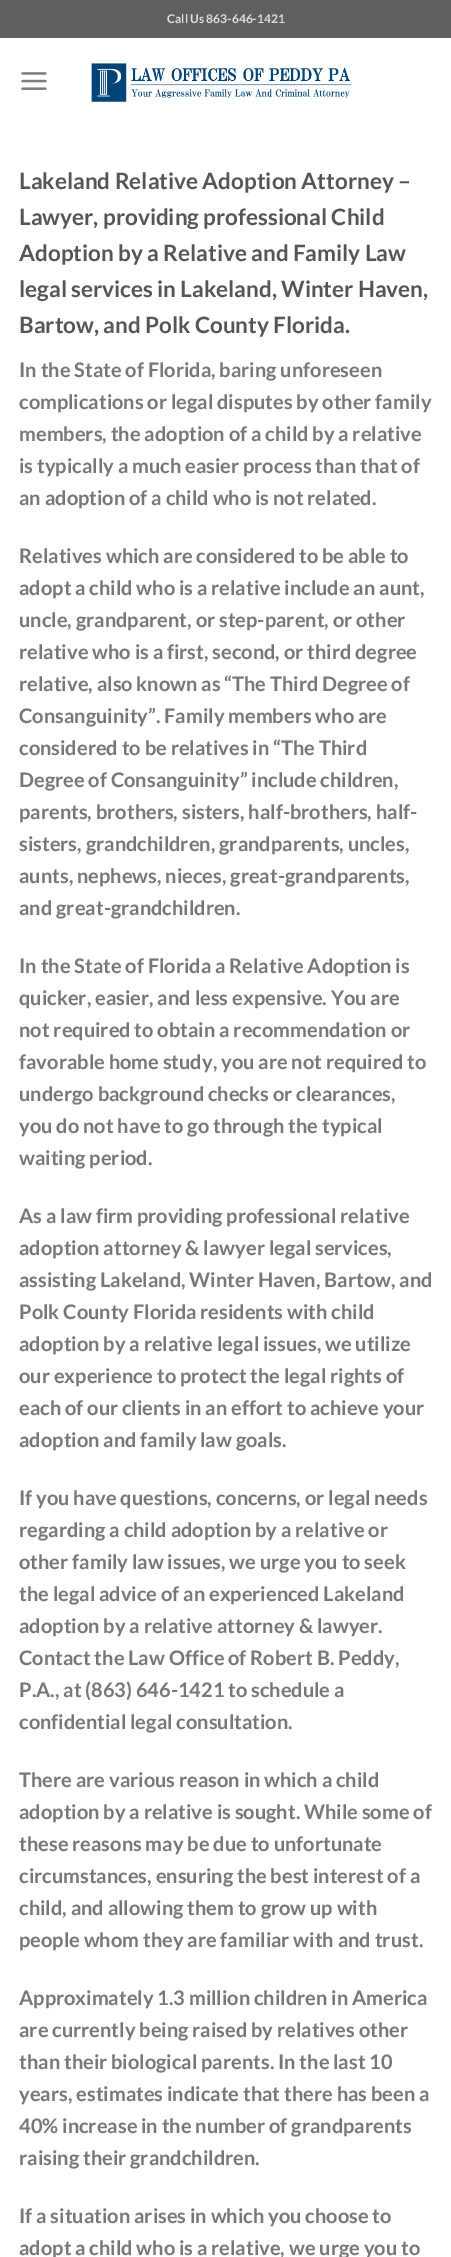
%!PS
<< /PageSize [451 2257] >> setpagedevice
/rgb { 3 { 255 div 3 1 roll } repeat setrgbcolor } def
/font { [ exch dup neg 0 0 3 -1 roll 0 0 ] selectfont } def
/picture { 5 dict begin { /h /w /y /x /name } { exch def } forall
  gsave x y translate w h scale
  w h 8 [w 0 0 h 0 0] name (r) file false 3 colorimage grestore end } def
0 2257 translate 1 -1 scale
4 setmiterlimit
255 255 255 rgb
0 0 451 2257 rectfill
96 96 96 rgb
0 0 451 38 rectfill
(img/1.rgb) 21 72 26 18 picture
(img/2.rgb) 91 63 260 39 picture
/Lato-Bold 12 font
223 223 223 rgb
167 23 moveto (Call Us 863-646-1421) show
/Lato-Bold 22.5 font
85 85 85 rgb
[
  [(Lakeland Relative Adoption Attorney –) 19 189]
  [(Lawyer, providing professional Child) 19 225]
  [(Adoption by a Relative and Family Law) 19 261]
  [(legal services in Lakeland, Winter Haven,) 19 297]
  [(Bartow, and Polk County Florida.) 19 333]
] { aload pop moveto show } forall
/Lato-Bold 20 font
119 119 119 rgb
[
  [(In the State of Florida, baring unforeseen) 19 377]
  [(complications or legal disputes by other family) 19 409]
  [(members, the adoption of a child by a relative) 19 441]
  [(is typically a much easier process than that of) 19 473]
  [(an adoption of a child who is not related.) 19 505]
  [(Relatives which are considered to be able to) 19 563]
  [(adopt a child who is a relative include an aunt,) 19 595]
  [(uncle, grandparent, or step-parent, or other) 19 627]
  [(relative who is a first, second, or third degree) 19 659]
  [(relative, also known as “The Third Degree of) 19 691]
  [(Consanguinity”. Family members who are) 19 723]
  [(considered to be relatives in “The Third) 19 755]
  [(Degree of Consanguinity” include children,) 19 787]
  [(parents, brothers, sisters, half-brothers, half-) 19 819]
  [(sisters, grandchildren, grandparents, uncles,) 19 851]
  [(aunts, nephews, nieces, great-grandparents,) 19 883]
  [(and great-grandchildren.) 19 915]
  [(In the State of Florida a Relative Adoption is) 19 973]
  [(quicker, easier, and less expensive. You are) 19 1005]
  [(not required to obtain a recommendation or) 19 1037]
  [(favorable home study, you are not required to) 19 1069]
  [(undergo background checks or clearances,) 19 1101]
  [(you do not have to go through the typical) 19 1133]
  [(waiting period.) 19 1165]
  [(As a law firm providing professional relative) 19 1223]
  [(adoption attorney & lawyer legal services,) 19 1255]
  [(assisting Lakeland, Winter Haven, Bartow, and) 19 1287]
  [(Polk County Florida residents with child) 19 1319]
  [(adoption by a relative legal issues, we utilize) 19 1351]
  [(our experience to protect the legal rights of) 19 1383]
  [(each of our clients in an effort to achieve your) 19 1415]
  [(adoption and family law goals.) 19 1447]
  [(If you have questions, concerns, or legal needs) 19 1505]
  [(regarding a child adoption by a relative or) 19 1537]
  [(other family law issues, we urge you to seek) 19 1569]
  [(the legal advice of an experienced Lakeland) 19 1601]
  [(adoption by a relative attorney & lawyer.) 19 1633]
  [(Contact the Law Office of Robert B. Peddy,) 19 1665]
  [(P.A., at \(863\) 646-1421 to schedule a) 19 1697]
  [(confidential legal consultation.) 19 1729]
  [(There are various reason in which a child) 19 1787]
  [(adoption by a relative is sought. While some of) 19 1819]
  [(these reasons may be due to unfortunate) 19 1851]
  [(circumstances, ensuring the best interest of a) 19 1883]
  [(child, and allowing them to grow up with) 19 1915]
  [(people whom they are familiar with and trust.) 19 1947]
  [(Approximately 1.3 million children in America) 19 2005]
  [(are currently being raised by relatives other) 19 2037]
  [(than their biological parents. In the last 10) 19 2069]
  [(years, estimates indicate that there has been a) 19 2101]
  [(40% increase in the number of grandparents) 19 2133]
  [(raising their grandchildren.) 19 2165]
  [(If a situation arises in which you choose to) 19 2223]
  [(adopt a child who is a relative, we urge you to) 19 2255]
] { aload pop moveto show } forall
showpage
